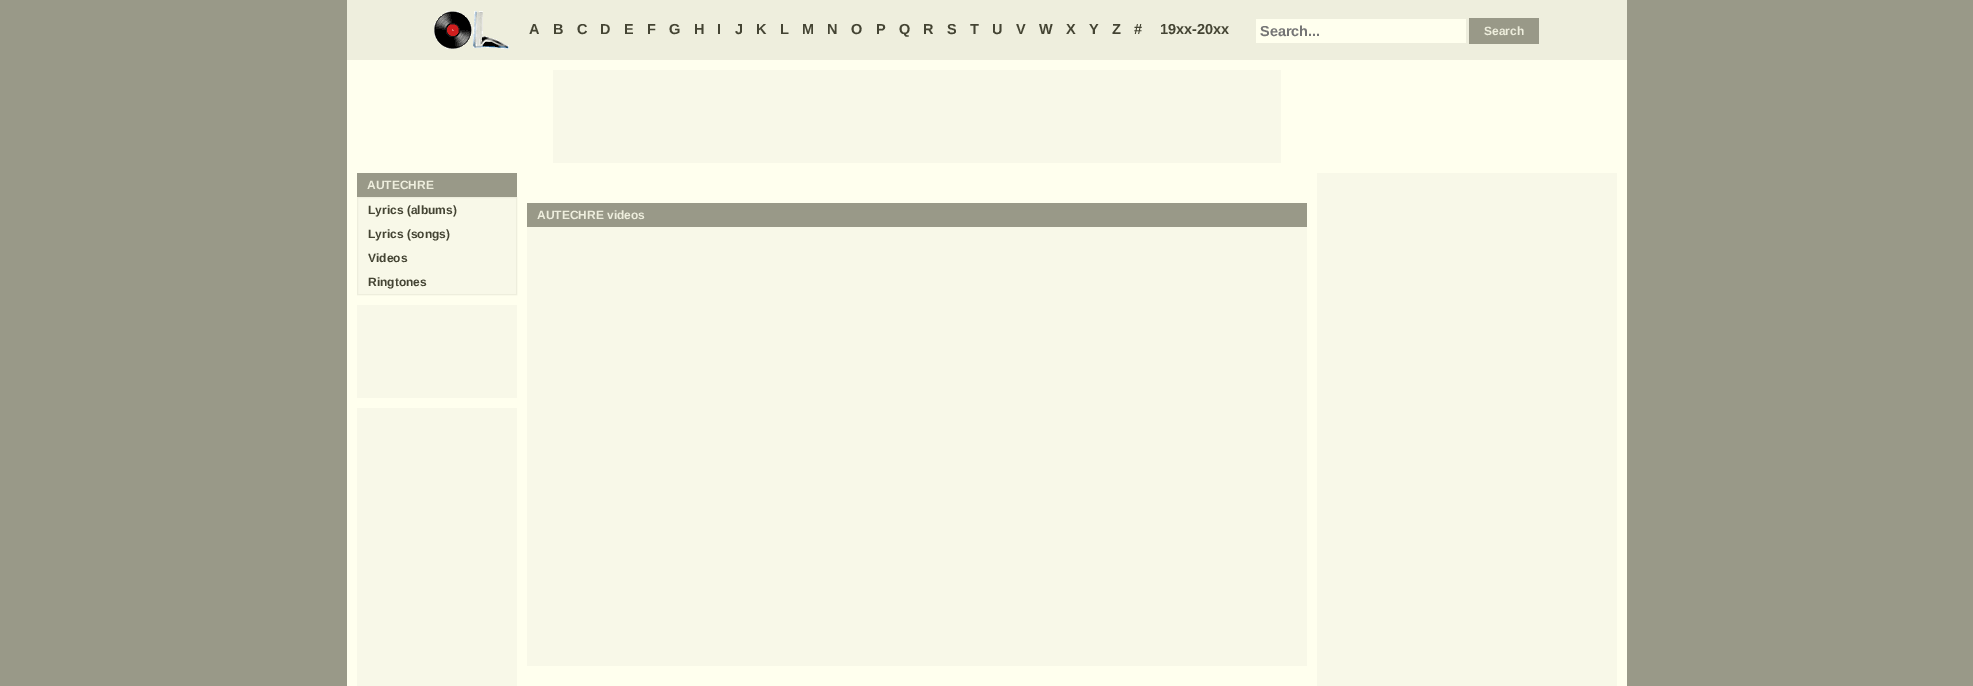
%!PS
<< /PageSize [1973 686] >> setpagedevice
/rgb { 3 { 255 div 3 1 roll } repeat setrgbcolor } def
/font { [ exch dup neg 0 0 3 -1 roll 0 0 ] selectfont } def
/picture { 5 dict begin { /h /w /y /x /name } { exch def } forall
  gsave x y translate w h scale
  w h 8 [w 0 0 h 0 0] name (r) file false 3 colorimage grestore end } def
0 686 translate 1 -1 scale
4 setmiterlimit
153 153 136 rgb
0 0 1973 686 rectfill
255 255 238 rgb
347 60 1280 626 rectfill
238 238 221 rgb
347 0 1280 60 rectfill
(img/1.rgb) 434 11 75 38 picture
[
  [1256 19 210 24 255 255 238]
  [1469 18 70 26 153 153 136]
  [553 70 728 93 248 248 232]
  [357 173 160 24 153 153 136]
] { aload pop rgb rectfill } forall
248 248 232 rgb
357.5 197.5 moveto 516.5 197.5 lineto 516.5 294.5 lineto 357.5 294.5 lineto closepath gsave fill grestore
238 238 221 rgb
stroke
[
  [357 305 160 93 248 248 232]
  [357 408 160 278 248 248 232]
  [527 203 780 24 153 153 136]
  [527 227 780 439 248 248 232]
  [1317 173 300 513 248 248 232]
] { aload pop rgb rectfill } forall
/LiberationSans-Bold 14.5 font
68 68 51 rgb
[
  [(A) 529 34]
  [(B) 553 34]
  [(C) 577 34]
  [(D) 600 34]
  [(E) 624 34]
  [(F) 647 34]
  [(G) 669 34]
  [(H) 694 34]
  [(I) 717 34]
  [(J) 735 34]
  [(K) 756 34]
  [(L) 780 34]
  [(M) 802 34]
  [(N) 827 34]
  [(O) 851 34]
  [(P) 876 34]
  [(Q) 899 34]
  [(R) 923 34]
  [(S) 947 34]
  [(T) 970 34]
  [(U) 992 34]
  [(V) 1016 34]
  [(W) 1039 34]
  [(X) 1066 34]
  [(Y) 1089 34]
  [(Z) 1112 34]
  [(#) 1134 34]
  [(19xx-20xx) 1160 34]
] { aload pop moveto show } forall
117 117 117 rgb
1260 36 moveto (Search...) show
/LiberationSans-Bold 12 font
238 238 221 rgb
1484 35 moveto (Search) show
367 189 moveto (AUTECHRE) show
68 68 51 rgb
[
  [(Lyrics \(albums\)) 368 214]
  [(Lyrics \(songs\)) 368 238]
  [(Videos) 368 262]
  [(Ringtones) 368 286]
] { aload pop moveto show } forall
238 238 221 rgb
537 219 moveto (AUTECHRE videos) show
showpage
